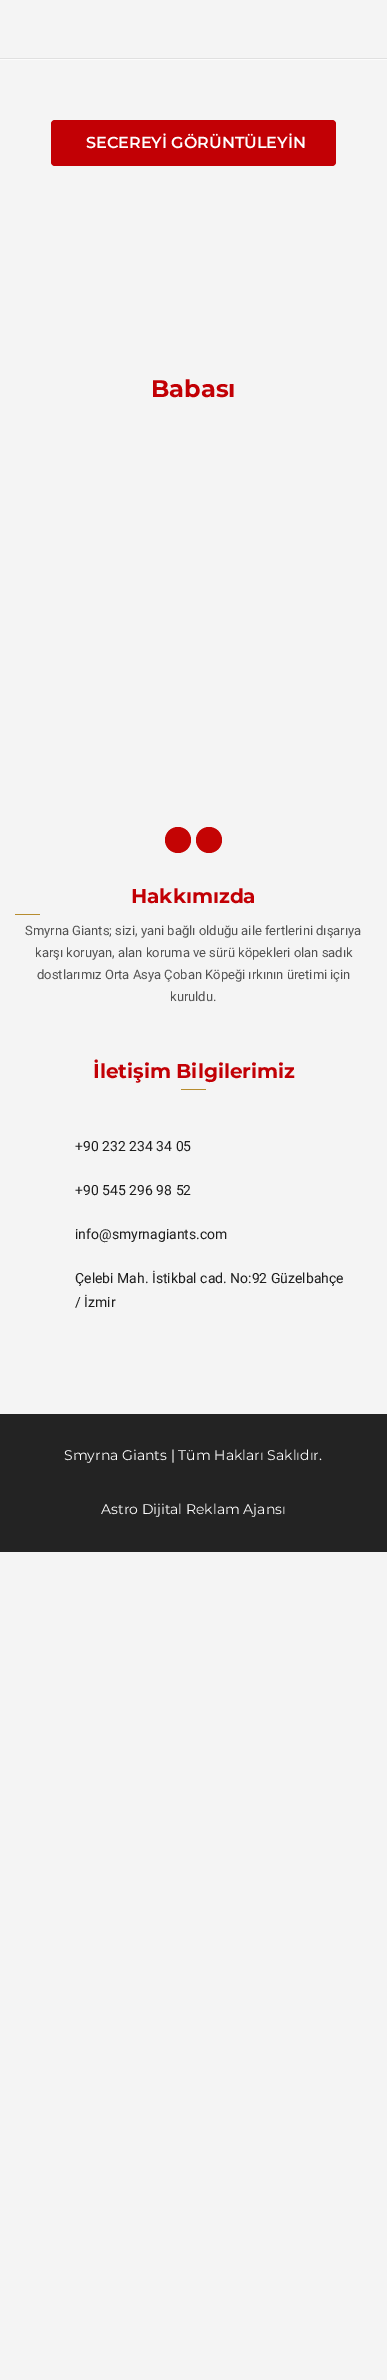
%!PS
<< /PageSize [387 2380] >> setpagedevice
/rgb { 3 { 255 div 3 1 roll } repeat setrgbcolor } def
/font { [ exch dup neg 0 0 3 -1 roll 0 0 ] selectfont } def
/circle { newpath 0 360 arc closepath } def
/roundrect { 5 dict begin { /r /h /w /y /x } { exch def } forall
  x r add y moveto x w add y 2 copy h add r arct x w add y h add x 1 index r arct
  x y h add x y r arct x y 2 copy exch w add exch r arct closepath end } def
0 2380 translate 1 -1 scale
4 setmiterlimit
244 244 244 rgb
0 0 387 2380 rectfill
224 224 224 rgb
0 58 387 1 rectfill
252 252 252 rgb
0 59 387 1 rectfill
194 0 5 rgb
51 120 285 46 4 roundrect fill
196 4 4 rgb
178 840 13 circle fill
209 840 13 circle fill
[
  [15 914 25 1 182 140 47]
  [181 1089 25 1 182 140 47]
  [0 1414 387 138 35 35 35]
] { aload pop rgb rectfill } forall
/Montserrat-SemiBold 16 font
255 255 255 rgb
86 148 moveto (SECEREYİ GÖRÜNTÜLEYİN) show
/Montserrat-Bold 24 font
194 0 5 rgb
151 397 moveto (Babası) show
/Montserrat-Bold 20 font
131 903 moveto (Hakkımızda) show
/Roboto-Regular 13 font
83 83 83 rgb
[
  [(Smyrna Giants; sizi, yani bağlı olduğu aile fertlerini dışarıya) 25 935]
  [(karşı koruyan, alan koruma ve sürü köpekleri olan sadık) 35 957]
  [(dostlarımız Orta Asya Çoban Köpeği ırkının üretimi için) 37 979]
  [(kuruldu.) 170 1001]
] { aload pop moveto show } forall
/Montserrat-Bold 20 font
194 0 5 rgb
93 1078 moveto (İletişim Bilgilerimiz) show
/Roboto-Regular 14 font
29 29 29 rgb
[
  [(+90 232 234 34 05) 75 1151]
  [(+90 545 296 98 52) 75 1195]
  [(info@smyrnagiants.com) 75 1239]
  [(Çelebi Mah. İstikbal cad. No:92 Güzelbahçe) 75 1283]
  [(/ İzmir) 75 1307]
] { aload pop moveto show } forall
/Montserrat-Regular 14 font
255 255 255 rgb
64 1460 moveto (Smyrna Giants | Tüm Hakları Saklıdır.) show
101 1514 moveto (Astro Dijital Reklam Ajansı) show
showpage
